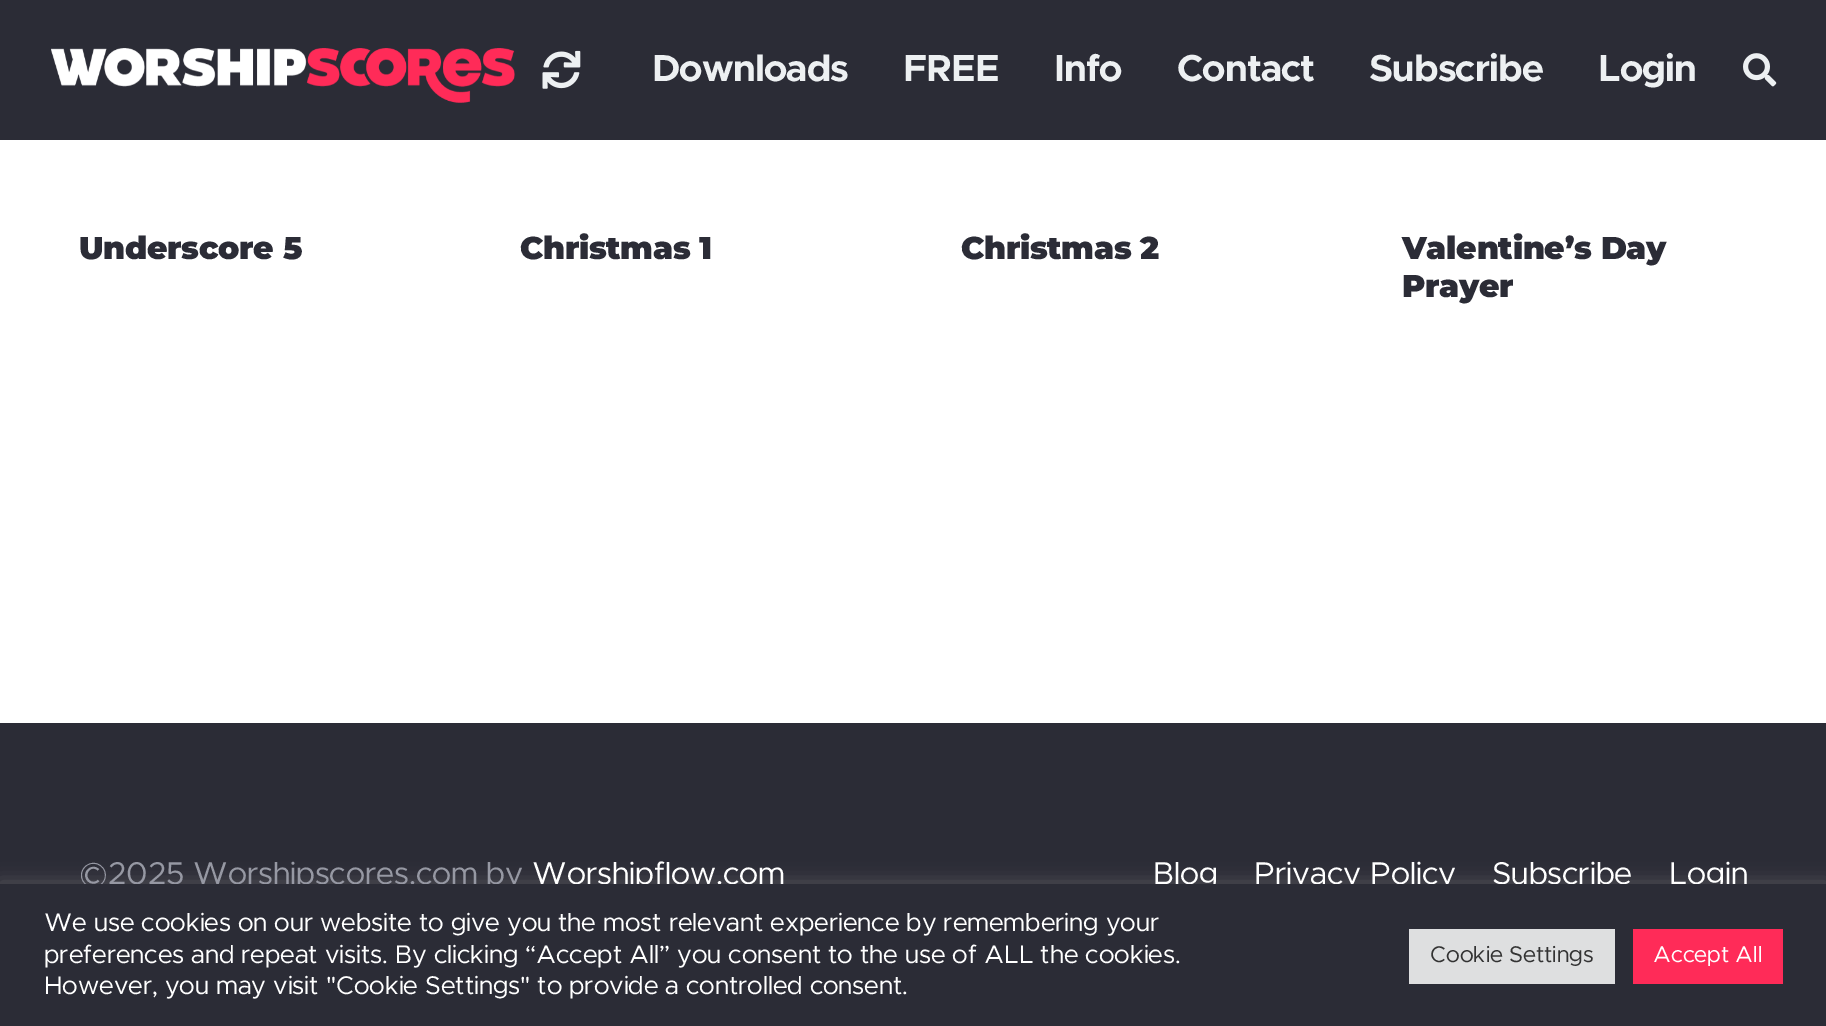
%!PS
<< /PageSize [1826 1026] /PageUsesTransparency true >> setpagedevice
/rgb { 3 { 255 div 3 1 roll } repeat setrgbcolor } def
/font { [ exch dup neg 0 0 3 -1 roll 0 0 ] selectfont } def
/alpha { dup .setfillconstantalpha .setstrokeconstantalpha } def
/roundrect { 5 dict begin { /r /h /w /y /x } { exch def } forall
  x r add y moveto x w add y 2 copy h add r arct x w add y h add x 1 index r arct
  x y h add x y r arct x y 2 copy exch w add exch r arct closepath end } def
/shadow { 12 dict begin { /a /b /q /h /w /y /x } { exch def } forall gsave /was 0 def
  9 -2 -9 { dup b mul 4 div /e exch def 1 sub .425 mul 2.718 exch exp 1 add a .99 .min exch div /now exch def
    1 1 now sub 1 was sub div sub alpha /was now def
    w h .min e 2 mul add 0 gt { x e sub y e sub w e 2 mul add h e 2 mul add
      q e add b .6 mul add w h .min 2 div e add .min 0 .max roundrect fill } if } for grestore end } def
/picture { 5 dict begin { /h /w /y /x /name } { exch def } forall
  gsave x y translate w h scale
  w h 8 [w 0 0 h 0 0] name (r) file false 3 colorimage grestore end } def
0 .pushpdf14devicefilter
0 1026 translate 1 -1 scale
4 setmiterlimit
255 255 255 rgb
0 0 1826 1026 rectfill
43 44 54 rgb
0 0 1826 140 rectfill
(img/1.rgb) 51 48 464 55 picture
(img/2.rgb) 542 50 39 39 picture
(img/3.rgb) 1743 53 34 34 picture
0 723 1826 161 rectfill
172 171 171 rgb
0 882 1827 144 0 9 0.3 shadow
/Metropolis-Bold 37.75 font
237 240 242 rgb
652 81 moveto -0.75 0 (Downloads) ashow
903 81 moveto -0.75 0 (FREE) ashow
1054 81 moveto -0.75 0 (Info) ashow
1177 81 moveto -0.75 0 (Contact) ashow
1369 81 moveto -0.75 0 (Subscribe) ashow
1598 81 moveto -0.75 0 (Login) ashow
/Montserrat-Black 31.5 font
43 44 54 rgb
79 259 moveto -0.3 0 (Underscore 5) ashow
520 259 moveto -0.3 0 (Christmas 1) ashow
961 259 moveto -0.3 0 (Christmas 2) ashow
1402 259 moveto -0.3 0 (Valentine’s Day) ashow
1402 297 moveto -0.3 0 (Prayer) ashow
/Metropolis-Regular 31.5 font
150 152 163 rgb
79 884 moveto (©2025 Worshipscores.com by) show
255 255 255 rgb
[
  [(Worshipflow.com) 532 884]
  [(Blog) 1153 884]
  [(Privacy Policy) 1254 884]
  [(Subscribe) 1492 884]
  [(Login) 1669 884]
] { aload pop moveto show } forall
43 44 54 rgb
0 884 1826 142 rectfill
/Metropolis-Regular 25.65 font
255 255 255 rgb
[
  [(We use cookies on our website to give you the most relevant experience by remembering your) 44 931]
  [(preferences and repeat visits. By clicking “Accept All” you consent to the use of ALL the cookies.) 44 963]
  [(However, you may visit "Cookie Settings" to provide a controlled consent.) 44 994]
] { aload pop moveto show } forall
222 223 224 rgb
1409 929 206 55 rectfill
/Metropolis-Regular 22.75 font
51 51 51 rgb
1430 962 moveto (Cookie Settings) show
255 43 88 rgb
1633 929 150 55 rectfill
255 255 255 rgb
1653 962 moveto (Accept All) show
.poppdf14devicefilter showpage
